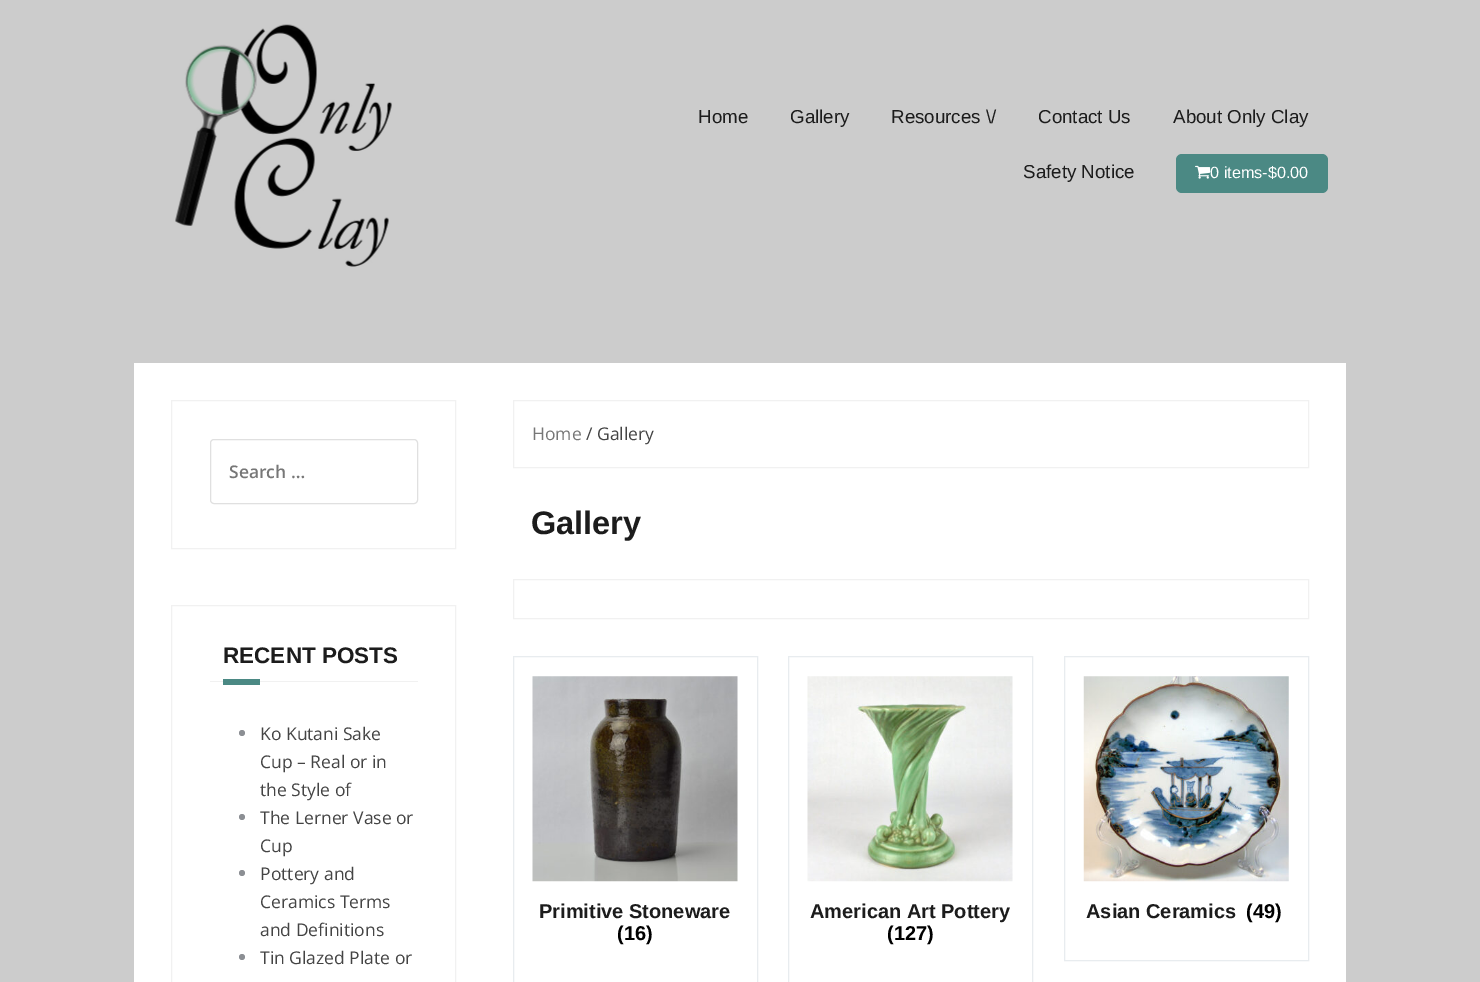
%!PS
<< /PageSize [1480 982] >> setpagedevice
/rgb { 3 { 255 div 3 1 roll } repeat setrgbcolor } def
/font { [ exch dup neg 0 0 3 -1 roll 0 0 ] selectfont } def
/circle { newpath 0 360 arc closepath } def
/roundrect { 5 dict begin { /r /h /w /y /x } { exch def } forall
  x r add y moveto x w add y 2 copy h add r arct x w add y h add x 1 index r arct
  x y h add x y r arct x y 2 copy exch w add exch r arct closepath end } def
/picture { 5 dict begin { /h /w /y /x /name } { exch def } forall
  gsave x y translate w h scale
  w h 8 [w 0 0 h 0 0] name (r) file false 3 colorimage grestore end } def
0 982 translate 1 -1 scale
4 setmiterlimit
204 204 204 rgb
0 0 1480 982 rectfill
(img/1.rgb) 175 24 217 243 picture
75 137 132 rgb
1176 154 152 39 6 roundrect fill
(img/2.rgb) 1195 165 16 14 picture
255 255 255 rgb
134 363 1212 619 rectfill
241 241 241 rgb
171.5 400.5 284 148 rectstroke
224 224 224 rgb
210.5 439.5 207 64 3.5 roundrect stroke
241 241 241 rgb
171.5 605.5 284 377 rectstroke
210 681 208 1 rectfill
75 137 132 rgb
223 679 37 6 rectfill
140 143 148 rgb
242 733 3 circle fill
242 817 3 circle fill
242 873 3 circle fill
242 957 3 circle fill
241 241 241 rgb
513.5 400.5 795 67 rectstroke
513.5 579.5 795 39 rectstroke
232 236 239 rgb
513.5 656.5 244 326 rectstroke
(img/3.rgb) 532 676 206 206 picture
788.5 656.5 244 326 rectstroke
(img/4.rgb) 807 676 206 206 picture
1064.5 656.5 244 304 rectstroke
(img/5.rgb) 1083 676 206 206 picture
/LiberationSans-Regular 18.75 font
28 28 28 rgb
[
  [(Home) 698 123]
  [(Gallery) 790 123]
  [(Resources \\/) 891 123]
  [(Contact Us) 1038 123]
  [(About Only Clay) 1173 123]
  [(Safety Notice) 1023 178]
] { aload pop moveto show } forall
/LiberationSans-Regular 16.25 font
255 255 255 rgb
1210 178 moveto (0 items-$0.00) show
/OpenSans-SemiBold 17.5 font
119 119 119 rgb
229 478 moveto (Search …) show
/LiberationSans-Bold 22.5 font
28 28 28 rgb
223 663 moveto (RECENT POSTS) show
/OpenSans-Regular 17.5 font
68 68 68 rgb
[
  [(Ko Kutani Sake) 260 740]
  [(Cup – Real or in) 260 768]
  [(the Style of) 260 796]
  [(The Lerner Vase or) 260 824]
  [(Cup) 260 852]
  [(Pottery and) 260 880]
  [(Ceramics Terms) 260 908]
  [(and Definitions) 260 936]
  [(Tin Glazed Plate or) 260 964]
] { aload pop moveto show } forall
119 119 119 rgb
532 440 moveto (Home) show
68 68 68 rgb
586 440 moveto (/ Gallery) show
/LiberationSans-Bold 32.5 font
28 28 28 rgb
531 534 moveto (Gallery) show
/LiberationSans-Bold 20 font
539 918 moveto (Primitive Stoneware) show
0 0 0 rgb
617 940 moveto (\(16\)) show
28 28 28 rgb
810 918 moveto (American Art Pottery) show
0 0 0 rgb
887 940 moveto (\(127\)) show
28 28 28 rgb
1086 918 moveto (Asian Ceramics) show
0 0 0 rgb
1246 918 moveto (\(49\)) show
showpage
